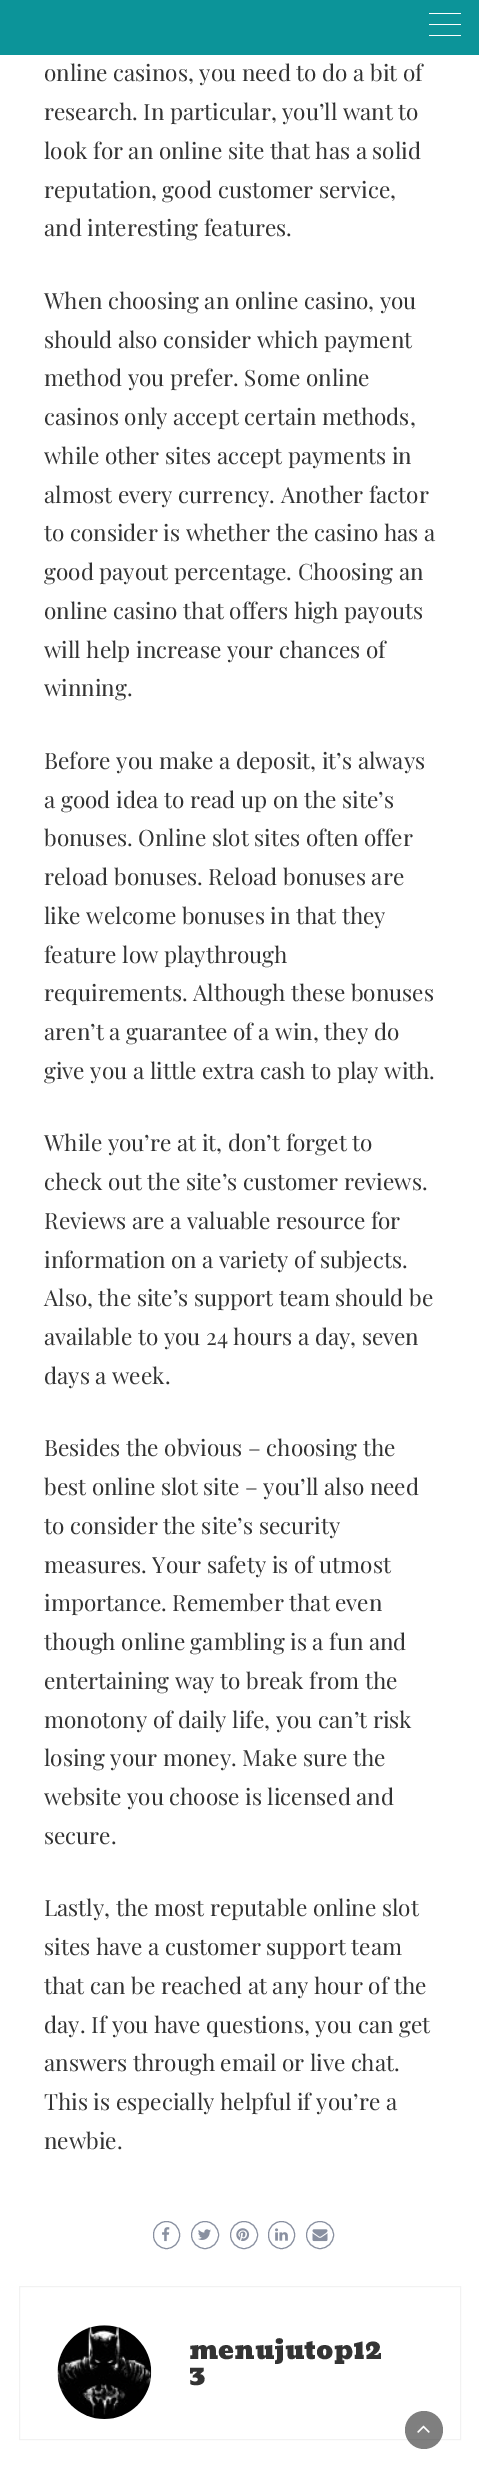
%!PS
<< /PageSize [479 2486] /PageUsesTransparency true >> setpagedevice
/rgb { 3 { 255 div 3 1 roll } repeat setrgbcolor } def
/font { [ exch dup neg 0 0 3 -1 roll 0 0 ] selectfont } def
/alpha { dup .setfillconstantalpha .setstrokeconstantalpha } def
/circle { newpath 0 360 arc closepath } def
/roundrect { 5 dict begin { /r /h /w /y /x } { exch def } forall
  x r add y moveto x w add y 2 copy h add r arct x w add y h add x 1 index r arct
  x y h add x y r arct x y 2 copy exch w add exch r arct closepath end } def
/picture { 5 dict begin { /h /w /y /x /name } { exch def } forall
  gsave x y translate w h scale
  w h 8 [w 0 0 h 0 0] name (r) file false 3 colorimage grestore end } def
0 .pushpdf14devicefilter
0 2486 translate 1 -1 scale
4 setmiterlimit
255 255 255 rgb
0 0 479 2486 rectfill
[
  [0 0 479 55 12 148 153]
  [429 13 32 1 255 255 255]
  [429 24 32 1 255 255 255]
  [429 35 32 1 255 255 255]
] { aload pop rgb rectfill } forall
137 144 160 rgb
153.5 2221.5 26 27 13 roundrect stroke
(img/1.rgb) 162 2227 8 15 picture
205 2235 13.5 circle stroke
(img/2.rgb) 198 2229 13 11 picture
244 2235 13.5 circle stroke
(img/3.rgb) 236 2228 14 14 picture
268.5 2221.5 26 27 13 roundrect stroke
(img/4.rgb) 275 2228 13 13 picture
320 2235 13.5 circle stroke
(img/5.rgb) 312 2229 16 13 picture
242 242 242 rgb
19.5 2286.5 441 153 rectstroke
(img/6.rgb) 57 2325 95 94 picture
0.5 alpha
0 0 0 rgb
424 2430 19 circle fill
1 alpha
(img/7.rgb) 417 2425 13 8 picture
/PlayfairDisplay-Regular 22.5 font
51 51 51 rgb
[
  [(online casinos, you need to do a bit of) 44 81]
  [(research. In particular, you’ll want to) 44 120]
  [(look for an online site that has a solid) 44 159]
  [(reputation, good customer service,) 44 198]
  [(and interesting features.) 44 236]
  [(When choosing an online casino, you) 44 309]
  [(should also consider which payment) 44 348]
  [(method you prefer. Some online) 44 386]
  [(casinos only accept certain methods,) 44 425]
  [(while other sites accept payments in) 44 464]
  [(almost every currency. Another factor) 44 503]
  [(to consider is whether the casino has a) 44 541]
  [(good payout percentage. Choosing an) 44 580]
  [(online casino that offers high payouts) 44 619]
  [(will help increase your chances of) 44 658]
  [(winning.) 44 696]
  [(Before you make a deposit, it’s always) 44 769]
  [(a good idea to read up on the site’s) 44 808]
  [(bonuses. Online slot sites often offer) 44 846]
  [(reload bonuses. Reload bonuses are) 44 885]
  [(like welcome bonuses in that they) 44 924]
  [(feature low playthrough) 44 963]
  [(requirements. Although these bonuses) 44 1001]
  [(aren’t a guarantee of a win, they do) 44 1040]
  [(give you a little extra cash to play with.) 44 1079]
  [(While you’re at it, don’t forget to) 44 1151]
  [(check out the site’s customer reviews.) 44 1190]
  [(Reviews are a valuable resource for) 44 1229]
  [(information on a variety of subjects.) 44 1268]
  [(Also, the site’s support team should be) 44 1306]
  [(available to you 24 hours a day, seven) 44 1345]
  [(days a week.) 44 1384]
  [(Besides the obvious – choosing the) 44 1456]
  [(best online slot site – you’ll also need) 44 1495]
  [(to consider the site’s security) 44 1534]
  [(measures. Your safety is of utmost) 44 1573]
  [(importance. Remember that even) 44 1611]
  [(though online gambling is a fun and) 44 1650]
  [(entertaining way to break from the) 44 1689]
  [(monotony of daily life, you can’t risk) 44 1728]
  [(losing your money. Make sure the) 44 1766]
  [(website you choose is licensed and) 44 1805]
  [(secure.) 44 1844]
  [(Lastly, the most reputable online slot) 44 1916]
  [(sites have a customer support team) 44 1955]
  [(that can be reached at any hour of the) 44 1994]
  [(day. If you have questions, you can get) 44 2033]
  [(answers through email or live chat.) 44 2071]
  [(This is especially helpful if you’re a) 44 2110]
  [(newbie.) 44 2149]
] { aload pop moveto show } forall
/Moul-Regular 26.25 font
189 2359 moveto (menujutop12) show
189 2385 moveto (3) show
.poppdf14devicefilter showpage
